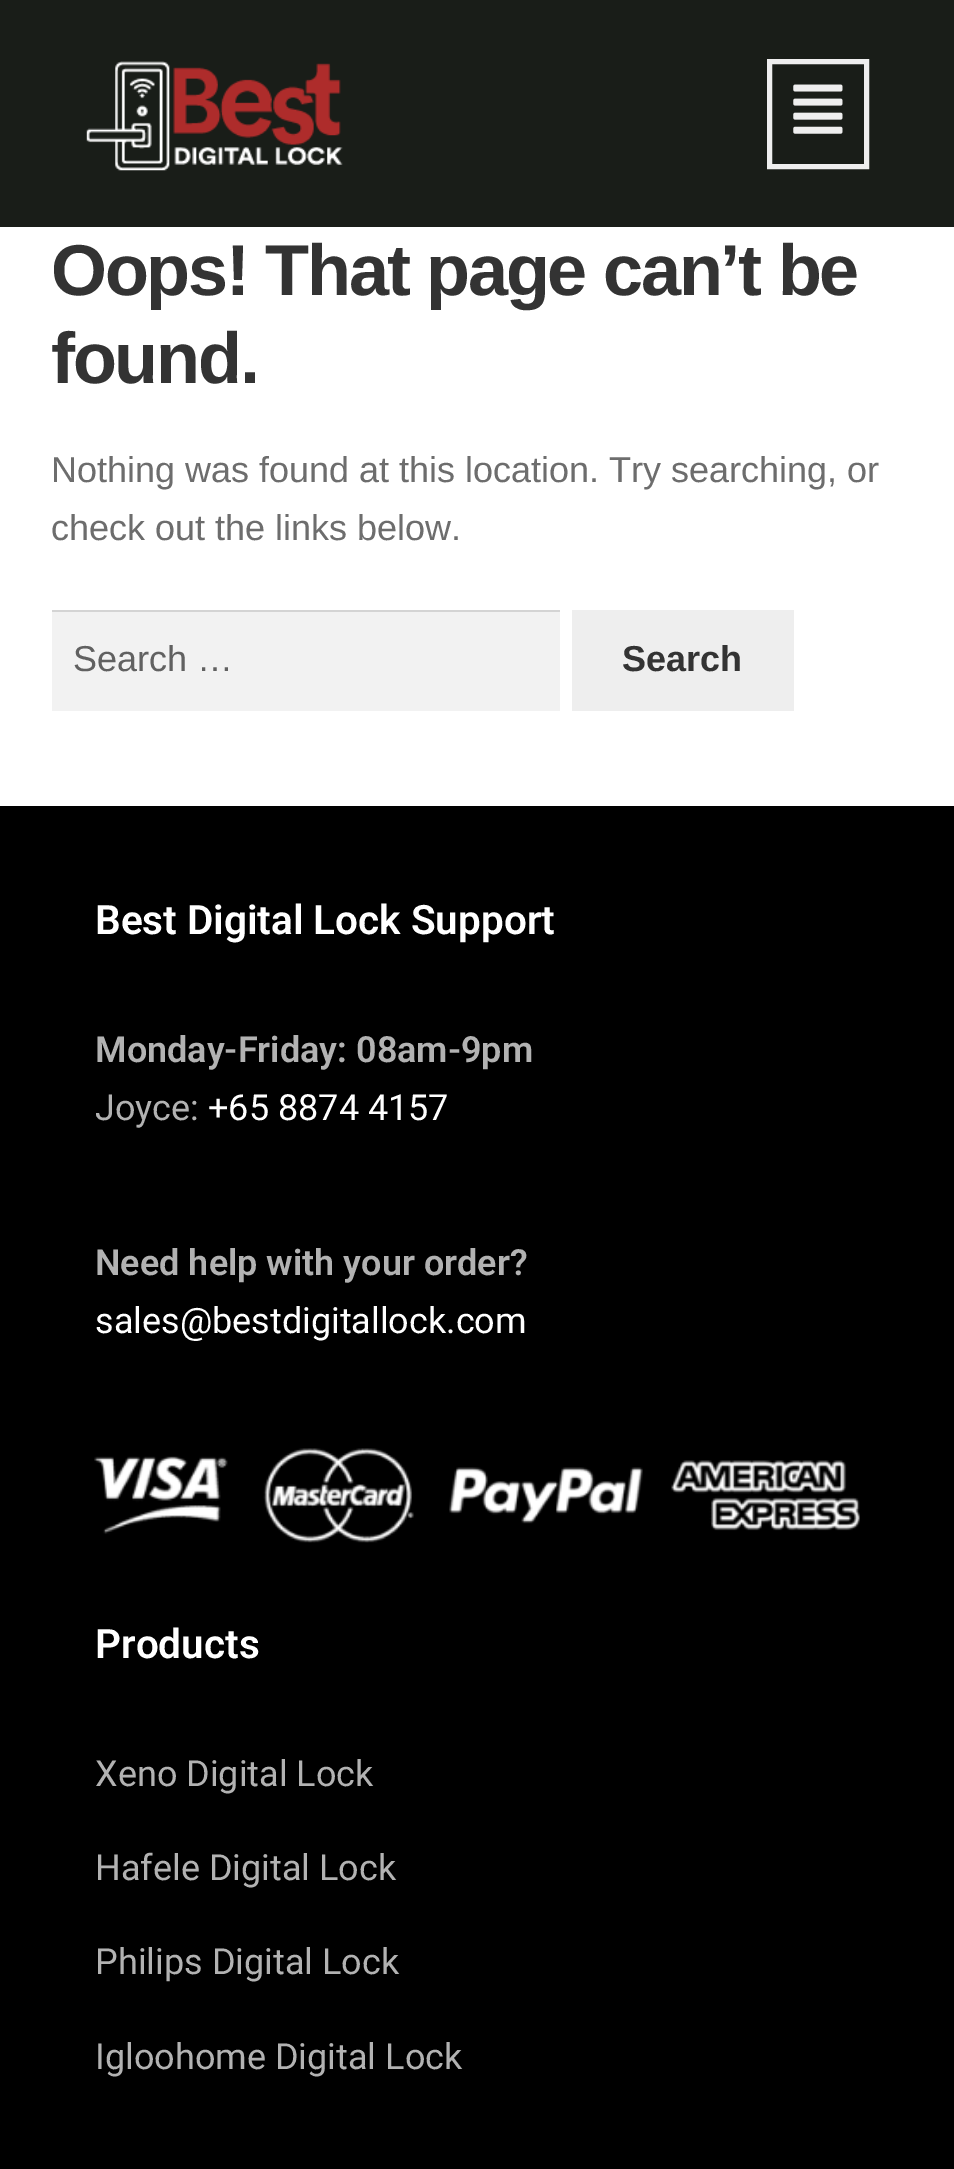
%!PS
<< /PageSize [954 2169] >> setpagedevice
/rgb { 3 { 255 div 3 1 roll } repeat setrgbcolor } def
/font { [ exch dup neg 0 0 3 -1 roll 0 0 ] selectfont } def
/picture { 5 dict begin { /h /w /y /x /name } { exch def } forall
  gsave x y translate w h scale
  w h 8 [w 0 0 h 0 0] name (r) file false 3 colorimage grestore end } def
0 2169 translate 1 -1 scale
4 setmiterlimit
255 255 255 rgb
0 0 954 2169 rectfill
25 29 24 rgb
0 0 954 227 rectfill
(img/1.rgb) 86 61 257 110 picture
238 238 238 rgb
5 setlinewidth
769.5 61.5 97 105 rectstroke
(img/2.rgb) 793 84 50 50 picture
[
  [52 612 508 99 242 242 242]
  [52 610 508 2 212 212 212]
  [572 610 222 101 238 238 238]
  [0 806 954 1363 0 0 0]
] { aload pop rgb rectfill } forall
(img/3.rgb) 94 1448 766 95 picture
/LiberationSans-Bold 72 font
51 51 51 rgb
51 295 moveto -2.25 0 (Oops! That page can’t be) ashow
51 383 moveto -2.25 0 (found.) ashow
/LiberationSans-Regular 36 font
109 109 109 rgb
51 482 moveto (Nothing was found at this location. Try searching, or) show
51 540 moveto (check out the links below.) show
97 97 97 rgb
73 671 moveto (Search …) show
/LiberationSans-Bold 36 font
51 51 51 rgb
622 671 moveto (Search) show
/Roboto-SemiBold 40.5 font
255 255 255 rgb
95 934 moveto (Best Digital Lock Support) show
/Roboto-SemiBold 36 font
178 178 178 rgb
95 1062 moveto (Monday-Friday: 08am-9pm) show
/Roboto-Regular 36 font
95 1120 moveto (Joyce:) show
255 255 255 rgb
208 1120 moveto (+65 8874 4157) show
/Roboto-SemiBold 36 font
178 178 178 rgb
95 1275 moveto (Need help with your order?) show
/Roboto-Regular 36 font
255 255 255 rgb
95 1333 moveto (sales@bestdigitallock.com) show
/Roboto-SemiBold 40.5 font
95 1658 moveto (Products) show
/Roboto-Regular 36 font
178 178 178 rgb
[
  [(Xeno Digital Lock) 95 1786]
  [(Hafele Digital Lock) 95 1880]
  [(Philips Digital Lock) 95 1974]
  [(Igloohome Digital Lock) 95 2069]
] { aload pop moveto show } forall
showpage
